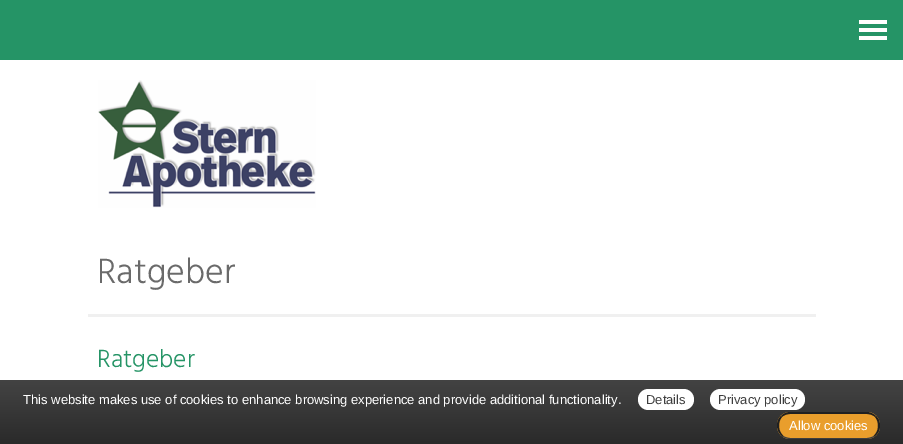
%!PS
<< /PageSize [903 444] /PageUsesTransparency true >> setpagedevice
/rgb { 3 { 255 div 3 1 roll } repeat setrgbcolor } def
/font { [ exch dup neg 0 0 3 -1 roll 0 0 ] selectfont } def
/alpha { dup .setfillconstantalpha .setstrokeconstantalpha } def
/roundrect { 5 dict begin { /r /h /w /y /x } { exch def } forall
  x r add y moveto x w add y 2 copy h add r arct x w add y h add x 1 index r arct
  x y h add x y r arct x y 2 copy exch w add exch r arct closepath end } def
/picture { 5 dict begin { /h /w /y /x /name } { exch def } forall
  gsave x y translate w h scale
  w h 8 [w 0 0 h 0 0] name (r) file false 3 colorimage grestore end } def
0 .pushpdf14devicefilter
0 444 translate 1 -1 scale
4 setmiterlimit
255 255 255 rgb
0 0 903 444 rectfill
[
  [0 0 903 60 37 148 102]
  [859 20 28 4 255 255 255]
  [859 28 28 4 255 255 255]
  [859 36 28 4 255 255 255]
] { aload pop rgb rectfill } forall
(img/1.rgb) 98 80 218 128 picture
240 240 240 rgb
88 314 728 3 rectfill
gsave 137 441 moveto 767 441 lineto 767 442 lineto 137 442 lineto closepath clip newpath
<< /ShadingType 2 /ColorSpace /DeviceRGB /Coords [97 442 807 442] /Extend [true true] /Function << /FunctionType 3 /Domain [0 1] /Functions [<< /FunctionType 2 /Domain [0 1] /C0 [1 1 1] /C1 [0.914 0.914 0.914] /N 1 >> << /FunctionType 2 /Domain [0 1] /C0 [0.914 0.914 0.914] /C1 [1 1 1] /N 1 >>] /Bounds [0.5] /Encode [0 1 0 1] >> >> shfill grestore
0.95 alpha
gsave 0 380 moveto 903 380 lineto 903 444 lineto 0 444 lineto closepath clip newpath
<< /ShadingType 2 /ColorSpace /DeviceRGB /Coords [452 380 452 444] /Extend [true true] /Function << /FunctionType 2 /Domain [0 1] /C0 [0.227 0.227 0.227] /C1 [0.125 0.125 0.125] /N 1 >> >> shfill grestore
1 alpha
255 255 255 rgb
638 389 56 21 10.5 roundrect fill
710 389 95 21 10.5 roundrect fill
233 158 44 rgb
777 412 103 27 13 roundrect fill
32 32 32 rgb
790 412 moveto 786 412 783 414 781 416 curveto 782 417 lineto 784 415 787 414 790 414 curveto 867 414 lineto 870 414 873 415 875 417 curveto 876 416 lineto 874 414 870 412 867 412 curveto closepath fill
880 426 moveto 880 422 879 418.5 876 416 curveto 875 417 lineto 879.5 422 879 431.5 873.5 436 curveto 874.5 436.5 lineto 878 434 880 430 880 426 curveto closepath fill
62 62 62 rgb
790 439 moveto 867 439 lineto 870 439 873 438 875 436 curveto 874 436 lineto 872 437 869 438 867 438 curveto 790 438 lineto 788 438 785 437 783 436 curveto 782 436 lineto 784 438 787 439 790 439 curveto closepath fill
32 32 32 rgb
777 425 moveto 777 429.5 778.5 433.5 782.5 436.5 curveto 783.5 436 lineto 778 431.5 777.5 422 782 417 curveto 781 416 lineto 778.5 418 777 421.5 777 425 curveto closepath fill
/Hind-Light 36 font
106 106 106 rgb
97 283 moveto (Ratgeber) show
/Hind-Light 25.5 font
37 148 102 rgb
97 367 moveto (Ratgeber) show
/LiberationSans-Regular 13 font
255 255 255 rgb
23 404 moveto (This website makes use of cookies to enhance browsing experience and provide additional functionality.) show
62 62 62 rgb
646 404 moveto (Details) show
718 404 moveto (Privacy policy) show
255 255 255 rgb
789 430 moveto (Allow cookies) show
.poppdf14devicefilter showpage
